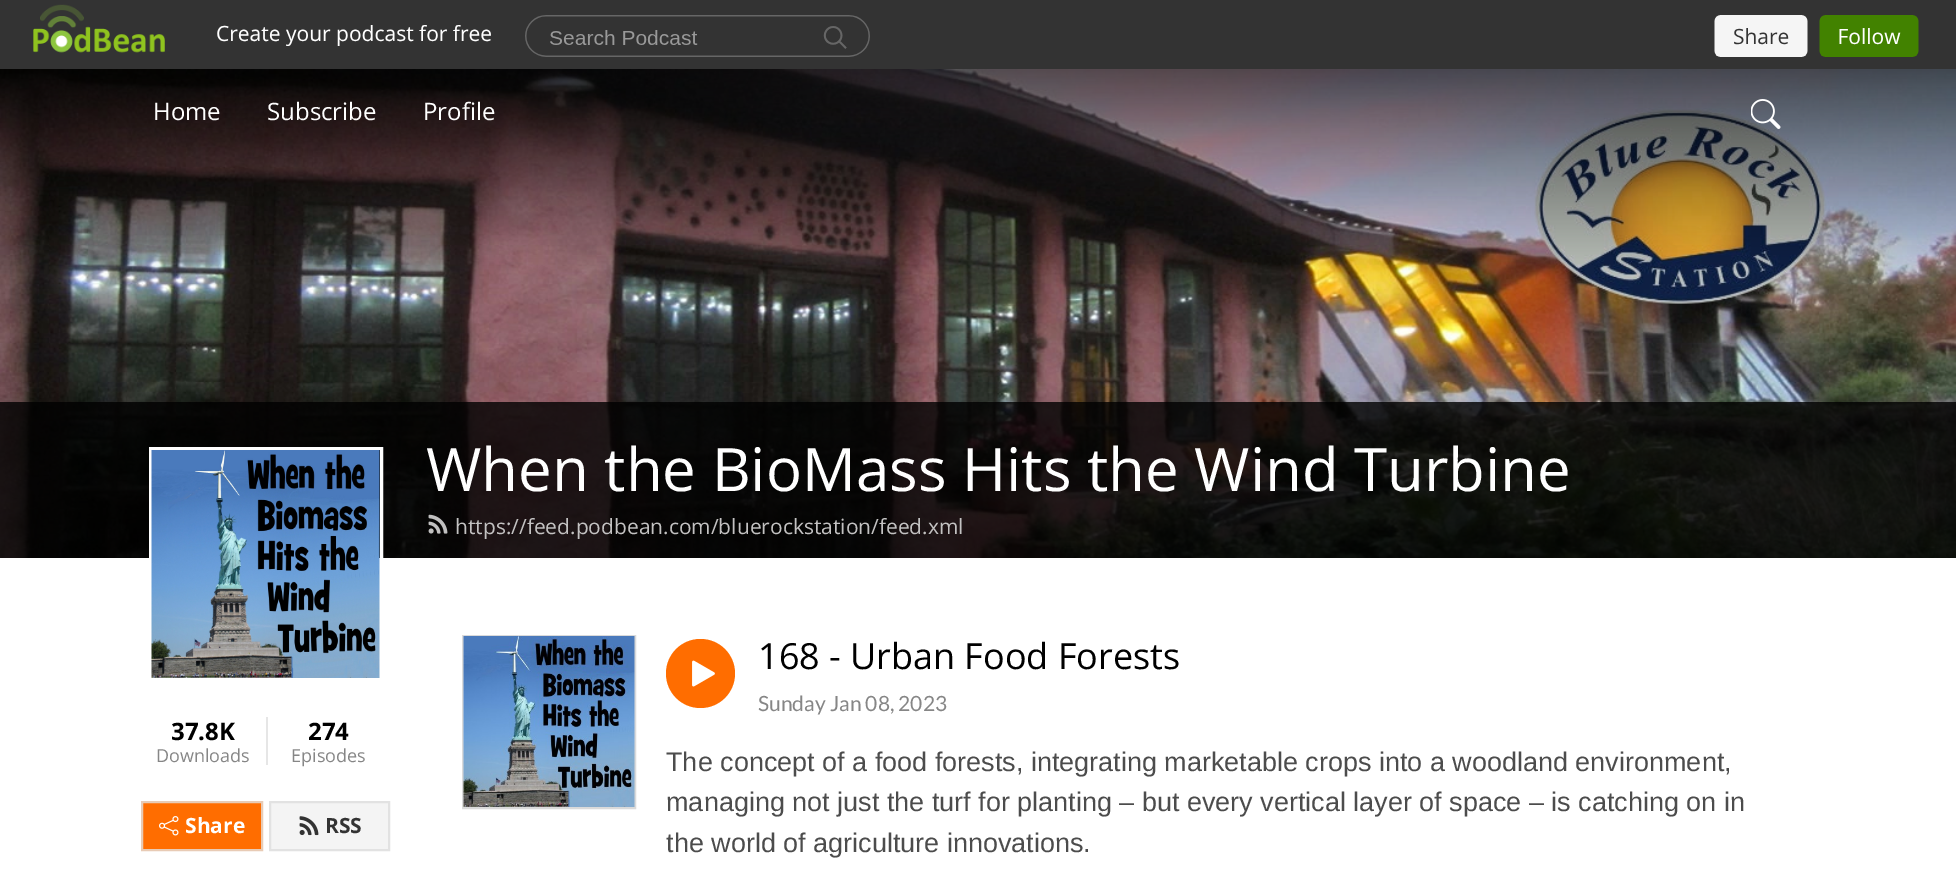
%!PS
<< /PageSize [1956 878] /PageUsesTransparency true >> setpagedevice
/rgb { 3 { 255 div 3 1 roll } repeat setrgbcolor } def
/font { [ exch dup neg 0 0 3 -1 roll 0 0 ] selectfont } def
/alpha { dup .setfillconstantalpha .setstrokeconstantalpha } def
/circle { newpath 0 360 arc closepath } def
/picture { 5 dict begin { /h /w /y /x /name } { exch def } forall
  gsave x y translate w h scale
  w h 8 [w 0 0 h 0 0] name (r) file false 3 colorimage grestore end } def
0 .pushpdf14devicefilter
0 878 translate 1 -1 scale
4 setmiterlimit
255 255 255 rgb
0 0 1956 878 rectfill
51 51 51 rgb
0 0 1956 69 rectfill
(img/1.rgb) 33 4 1886 53 picture
(img/3.rgb) 0 69 1956 489 picture
(img/2.rgb) 1751 99 30 30 picture
0.8 alpha
0 0 0 rgb
0 402 1956 156 rectfill
1 alpha
(img/4.rgb) 428 514 20 20 picture
255 255 255 rgb
3 setlinewidth
150.5 448.5 231 231 rectstroke
(img/5.rgb) 151 450 229 228 picture
230 230 230 rgb
266 717 2 48 rectfill
255 109 0 rgb
142 802 moveto 262 802 lineto 262 850 lineto 142 850 lineto closepath gsave fill grestore
232 203 181 rgb
2 setlinewidth
stroke
(img/6.rgb) 159 816 20 20 picture
244 244 244 rgb
270 802 moveto 389 802 lineto 389 850 lineto 270 850 lineto closepath gsave fill grestore
226 226 226 rgb
stroke
(img/7.rgb) 299 816 20 20 picture
218 218 218 rgb
463 636 172 172 rectstroke
(img/8.rgb) 463 636 172 171 picture
255 109 0 rgb
700.5 673.5 34.5 circle fill
(img/9.rgb) 692 660 23 27 picture
/OpenSans-Regular 24 font
255 255 255 rgb
[
  [(Home) 153 120]
  [(Subscribe) 267 120]
  [(Profile) 423 120]
] { aload pop moveto show } forall
/OpenSans-Regular 60 font
426 491 moveto (When the BioMass Hits the Wind Turbine) show
/OpenSans-Regular 21 font
195 194 194 rgb
455 534 moveto (https://feed.podbean.com/bluerockstation/feed.xml) show
/OpenSans-Bold 24 font
0 0 0 rgb
171 740 moveto (37.8K) show
/OpenSans-Regular 18 font
134 134 134 rgb
156 762 moveto (Downloads) show
/OpenSans-Bold 24 font
0 0 0 rgb
308 740 moveto (274) show
/OpenSans-Regular 18 font
134 134 134 rgb
291 762 moveto (Episodes) show
/OpenSans-Bold 21 font
255 255 255 rgb
185 833 moveto (Share) show
51 51 51 rgb
325 833 moveto (RSS) show
/OpenSans-Regular 36 font
0 0 0 rgb
758 669 moveto (168 - Urban Food Forests) show
/Lato-Regular 21 font
134 134 134 rgb
758 711 moveto (Sunday Jan 08, 2023) show
/LiberationSans-Regular 27 font
76 76 76 rgb
[
  [(The concept of a food forests, integrating marketable crops into a woodland environment,) 666 771]
  [(managing not just the turf for planting – but every vertical layer of space – is catching on in) 666 811]
  [(the world of agriculture innovations.) 666 852]
] { aload pop moveto show } forall
.poppdf14devicefilter showpage
